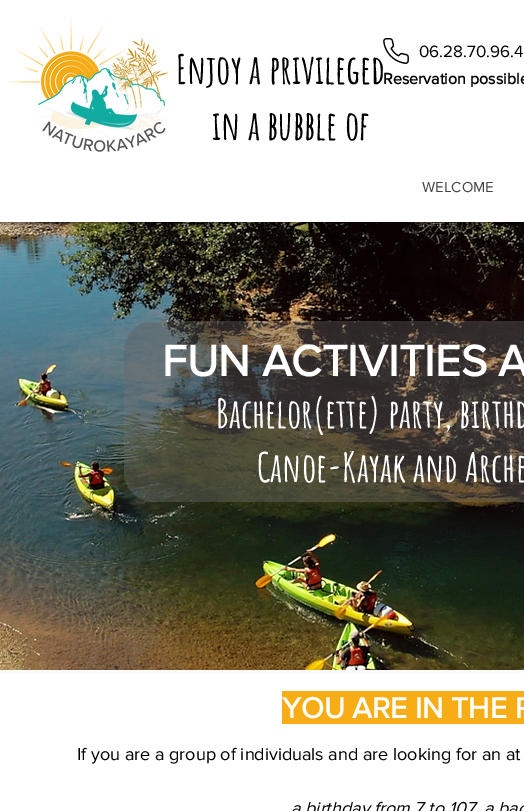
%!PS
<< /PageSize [524 811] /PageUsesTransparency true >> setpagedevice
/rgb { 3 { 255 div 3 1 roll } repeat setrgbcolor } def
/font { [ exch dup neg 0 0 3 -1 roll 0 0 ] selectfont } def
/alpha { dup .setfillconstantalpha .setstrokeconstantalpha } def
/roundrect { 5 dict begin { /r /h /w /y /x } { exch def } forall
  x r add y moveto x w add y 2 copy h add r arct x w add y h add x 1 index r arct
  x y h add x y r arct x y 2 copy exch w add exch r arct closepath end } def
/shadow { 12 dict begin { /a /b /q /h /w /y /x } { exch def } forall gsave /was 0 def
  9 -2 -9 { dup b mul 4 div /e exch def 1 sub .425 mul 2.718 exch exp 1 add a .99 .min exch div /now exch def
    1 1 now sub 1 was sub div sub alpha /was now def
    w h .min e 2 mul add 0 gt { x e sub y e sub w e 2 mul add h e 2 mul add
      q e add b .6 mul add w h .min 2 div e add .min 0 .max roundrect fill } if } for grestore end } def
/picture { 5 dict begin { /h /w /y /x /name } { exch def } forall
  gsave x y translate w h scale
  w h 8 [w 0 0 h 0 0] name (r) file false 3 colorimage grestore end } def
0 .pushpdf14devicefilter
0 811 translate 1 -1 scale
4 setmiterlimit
250 250 250 rgb
0 0 524 811 rectfill
(img/3.rgb) 0 222 524 448 picture
0 0 0 rgb
0 1 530 222 0 2 0.6 shadow
255 255 255 rgb
0 0 524 222 rectfill
(img/1.rgb) 7 17 161 135 picture
(img/2.rgb) 383 38 26 26 picture
0.35 alpha
117 117 117 rgb
124 321 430 181 30 roundrect fill
1 alpha
(img/4.rgb) 124 323 400 67 picture
255 255 255 rgb
0 673 524 138 rectfill
246 173 22 rgb
282 691 242 33 rectfill
/AmaticSC-Bold 40 font
0 0 0 rgb
176 84 moveto (Enjoy a privileged) show
212 140 moveto (in a bubble of) show
/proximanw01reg-Regular 17 font
419 57 moveto (06.28.70.96.4) show
/proximanw01reg-Bold 16 font
383 84 moveto (Reservation possible) show
/proximanw01reg-Regular 15 font
68 68 68 rgb
422 192 moveto (WELCOME) show
/proximanw01reg-Bold 45 font
255 255 255 rgb
162 376 moveto (FUN ACTIVITIES A) show
/AmaticSC-Bold 40 font
216 428 moveto (Bachelor\(ette\) party, birthd) show
257 482 moveto (Canoe-Kayak and Arche) show
/proximanw01reg-Bold 30 font
282 718 moveto (YOU ARE IN THE R) show
/proximanw01reg-Regular 18 font
0 0 0 rgb
77 760 moveto (If you are a group of individuals and are looking for an at) show
/proximanw01reg-Italic 18 font
291 814 moveto (a birthday from 7 to 107, a bac) show
.poppdf14devicefilter showpage
